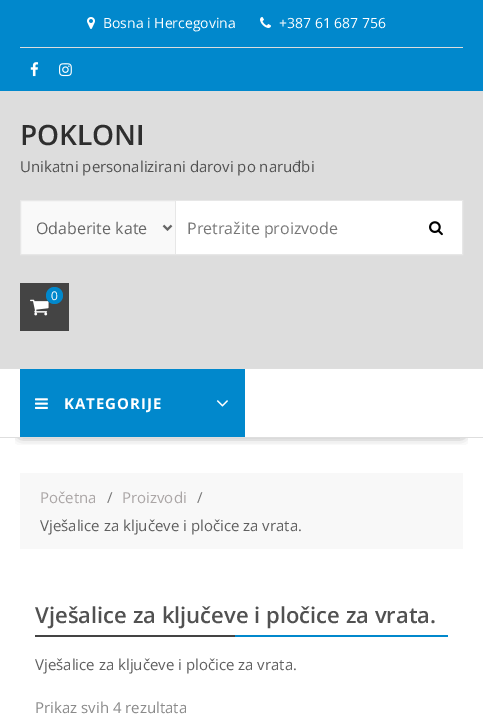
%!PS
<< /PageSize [483 721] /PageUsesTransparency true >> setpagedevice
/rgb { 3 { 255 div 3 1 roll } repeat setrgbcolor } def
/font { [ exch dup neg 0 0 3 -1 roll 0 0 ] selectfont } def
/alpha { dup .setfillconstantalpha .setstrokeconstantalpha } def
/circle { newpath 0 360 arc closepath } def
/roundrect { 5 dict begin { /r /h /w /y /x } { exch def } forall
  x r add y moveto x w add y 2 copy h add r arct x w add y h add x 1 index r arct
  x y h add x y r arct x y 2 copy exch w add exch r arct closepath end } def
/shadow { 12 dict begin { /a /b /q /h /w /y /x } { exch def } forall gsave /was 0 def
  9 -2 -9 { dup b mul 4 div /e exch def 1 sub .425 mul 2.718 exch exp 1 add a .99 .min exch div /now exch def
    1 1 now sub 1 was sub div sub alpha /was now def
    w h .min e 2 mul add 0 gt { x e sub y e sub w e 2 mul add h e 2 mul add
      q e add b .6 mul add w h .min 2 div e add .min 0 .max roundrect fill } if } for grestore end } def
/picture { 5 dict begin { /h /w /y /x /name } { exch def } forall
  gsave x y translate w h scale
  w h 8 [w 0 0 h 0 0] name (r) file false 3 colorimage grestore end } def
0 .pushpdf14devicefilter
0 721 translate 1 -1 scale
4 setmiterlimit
255 255 255 rgb
0 0 483 721 rectfill
1 136 204 rgb
0 0 483 91 rectfill
221 221 221 rgb
20 47 443 1 rectfill
(img/1.rgb) 87 17 8 12 picture
(img/2.rgb) 260 17 11 11 picture
(img/3.rgb) 30 62 9 15 picture
(img/4.rgb) 59 63 13 14 picture
0 91 483 277 rectfill
249 249 249 rgb
21 201 154 53 rectfill
231 231 231 rgb
20.5 200.5 442 54 rectstroke
102 102 102 rgb
2 setlinewidth
163.5 225.5 moveto 167.5 229.5 lineto 171.5 225.5 lineto stroke
255 255 255 rgb
176 201 286 53 rectfill
231 231 231 rgb
175 201 1 53 rectfill
(img/5.rgb) 429 221 14 15 picture
68 68 68 rgb
20 283 49 48 rectfill
(img/6.rgb) 30 299 19 17 picture
1 136 204 rgb
54.5 295.5 8.5 circle fill
gsave
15 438 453 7 rectclip
0 0 0 rgb
21 406 441 28 0 5.5 0.75 shadow
grestore
[
  [0 368 483 1 222 222 222]
  [0 437 483 1 222 222 222]
  [20 369 225 68 1 136 204]
] { aload pop rgb rectfill } forall
(img/7.rgb) 35 398 13 11 picture
(img/8.rgb) 216 400 12 7 picture
[
  [20 473 443 76 248 248 248]
  [35 635 200 2 68 68 68]
  [235 635 213 2 1 136 204]
] { aload pop rgb rectfill } forall
/OpenSans-Regular 14 font
255 255 255 rgb
103 28 moveto (Bosna i Hercegovina) show
279 28 moveto (+387 61 687 756) show
/OpenSans-SemiBold 28 font
46 46 46 rgb
20 145 moveto (POKLONI) show
/OpenSans-Regular 15 font
81 81 81 rgb
20 172 moveto (Unikatni personalizirani darovi po naruđbi) show
/OpenSans-Regular 16 font
102 102 102 rgb
36 234 moveto (Odaberite kate) show
119 119 119 rgb
187 234 moveto (Pretražite proizvode) show
/OpenSans-Regular 12 font
255 255 255 rgb
51 300 moveto (0) show
/OpenSans-Bold 15 font
64 409 moveto 1 0 (KATEGORIJE) ashow
/OpenSans-Regular 15 font
170 165 165 rgb
40 503 moveto (Početna) show
119 119 119 rgb
107 503 moveto (/) show
170 165 165 rgb
122 503 moveto (Proizvodi) show
119 119 119 rgb
197 503 moveto (/) show
95 95 95 rgb
40 531 moveto (Vješalice za ključeve i pločice za vrata.) show
/OpenSans-SemiBold 22 font
81 81 81 rgb
35 623 moveto (Vješalice za ključeve i pločice za vrata.) show
/OpenSans-Regular 15 font
95 95 95 rgb
35 670 moveto (Vješalice za ključeve i pločice za vrata.) show
138 138 138 rgb
35 713 moveto (Prikaz svih 4 rezultata) show
.poppdf14devicefilter showpage
